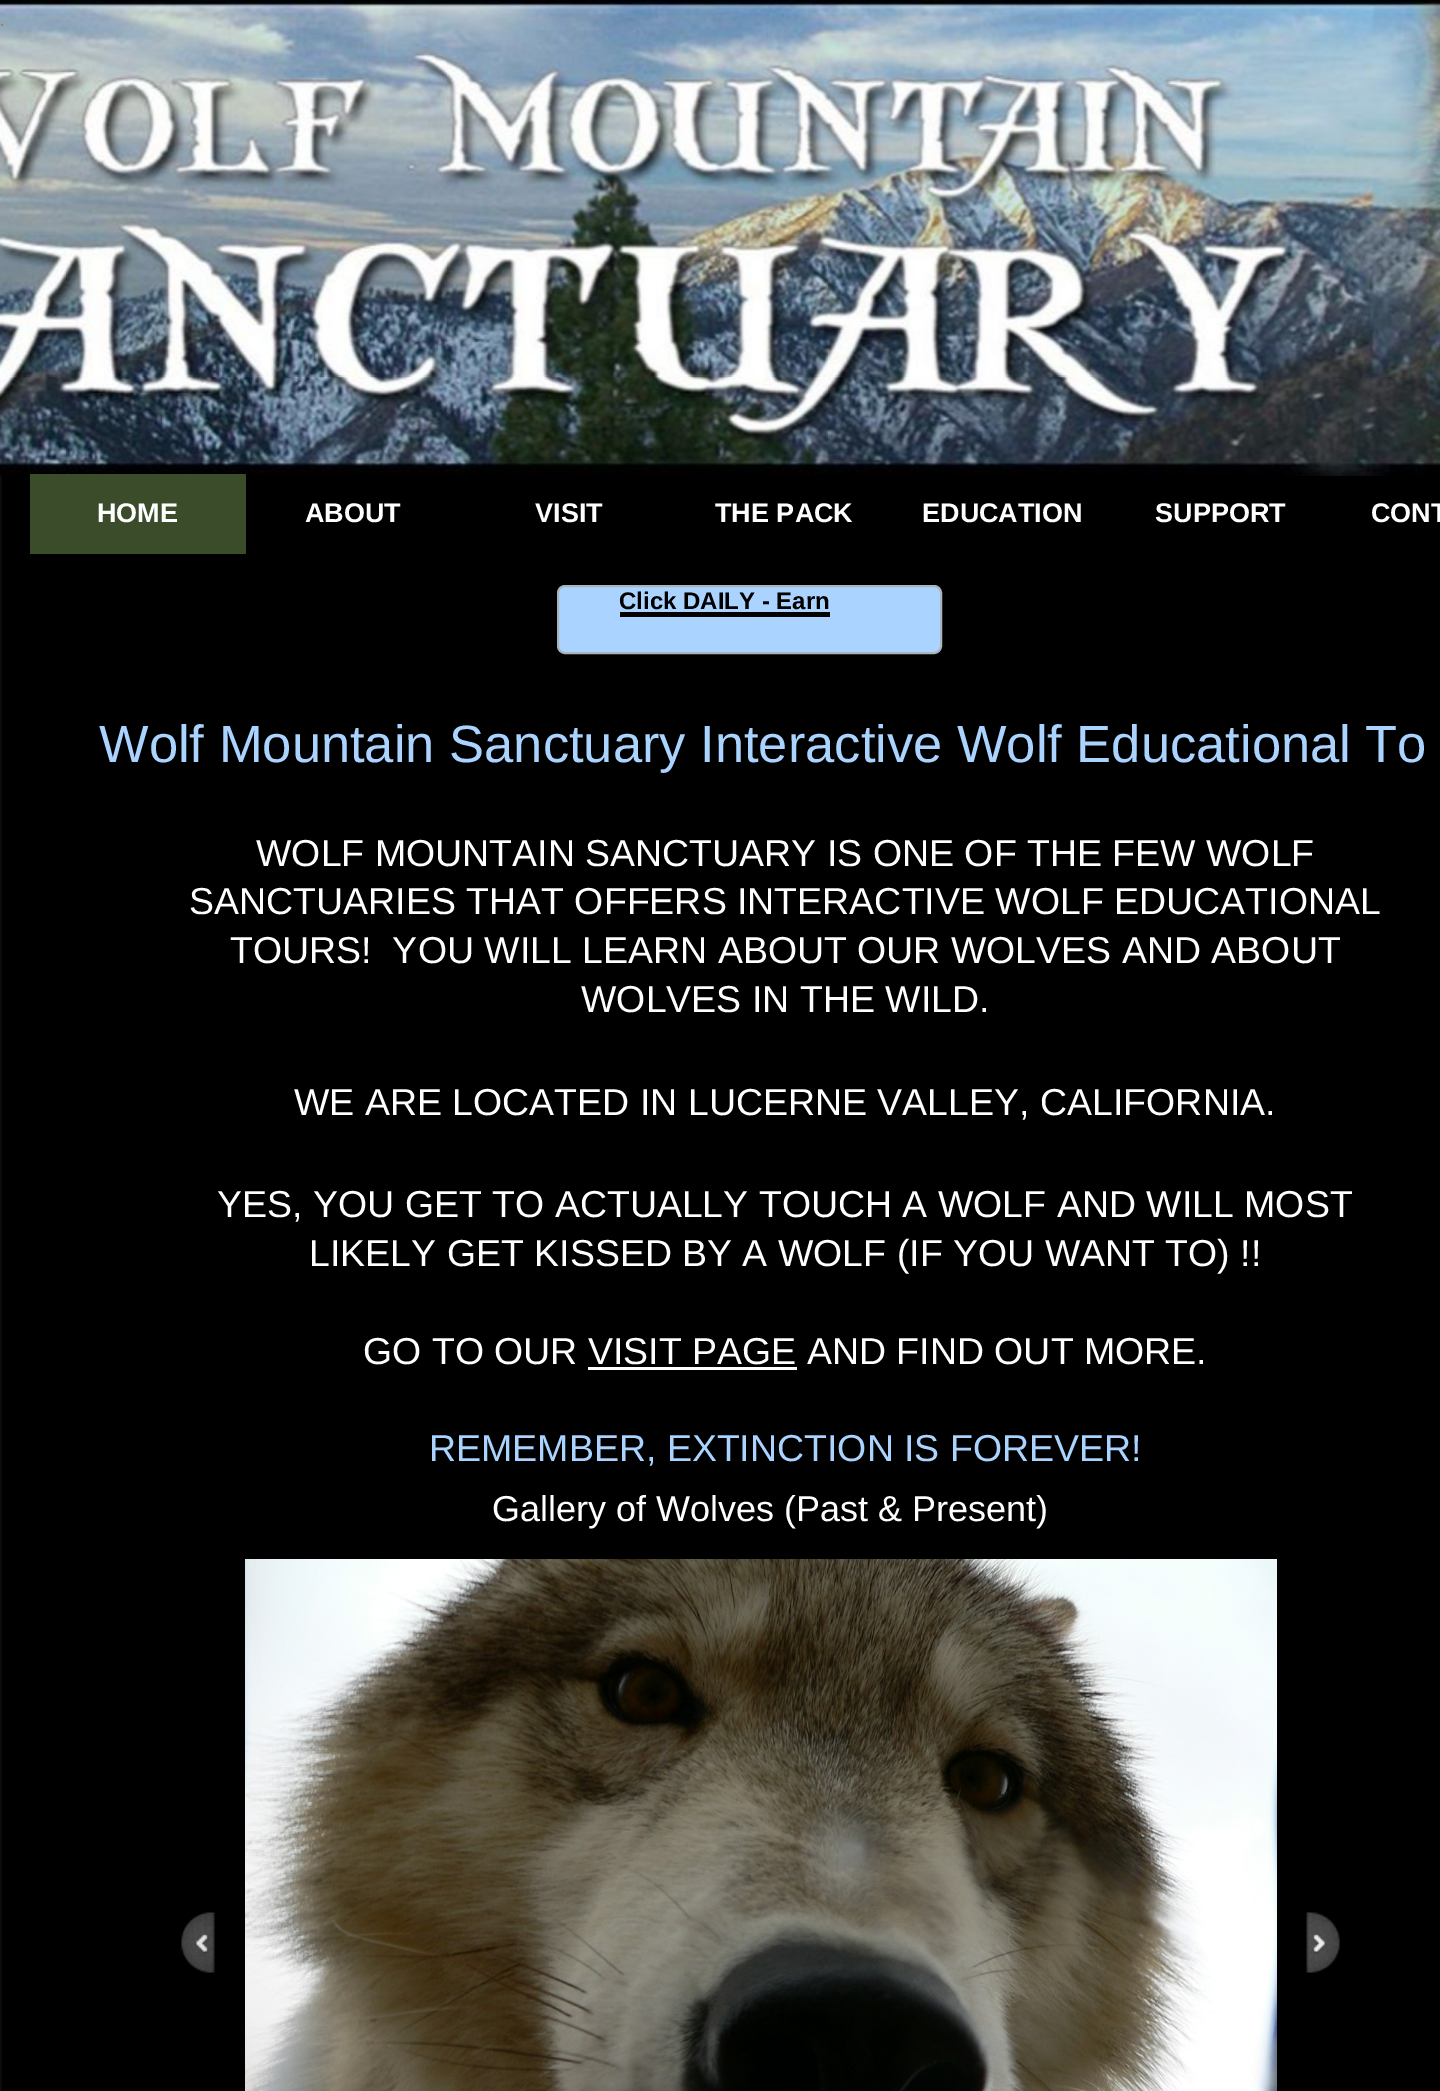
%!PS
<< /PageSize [1440 2091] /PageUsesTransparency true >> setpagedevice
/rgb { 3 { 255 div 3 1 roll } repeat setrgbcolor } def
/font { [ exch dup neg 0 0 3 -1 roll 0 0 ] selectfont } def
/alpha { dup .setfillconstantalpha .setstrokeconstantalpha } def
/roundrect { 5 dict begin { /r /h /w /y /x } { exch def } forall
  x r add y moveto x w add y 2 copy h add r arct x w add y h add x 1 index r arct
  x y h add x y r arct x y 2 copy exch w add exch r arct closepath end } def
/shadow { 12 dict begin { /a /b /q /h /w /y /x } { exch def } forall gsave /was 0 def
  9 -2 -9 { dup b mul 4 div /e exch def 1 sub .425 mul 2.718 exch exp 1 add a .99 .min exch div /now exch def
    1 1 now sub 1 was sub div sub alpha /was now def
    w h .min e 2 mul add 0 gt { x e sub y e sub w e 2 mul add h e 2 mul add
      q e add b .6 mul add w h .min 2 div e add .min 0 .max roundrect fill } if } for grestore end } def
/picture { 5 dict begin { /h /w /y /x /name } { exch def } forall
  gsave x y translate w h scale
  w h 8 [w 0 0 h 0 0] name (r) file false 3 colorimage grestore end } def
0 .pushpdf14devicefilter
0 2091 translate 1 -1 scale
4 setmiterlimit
0 0 0 rgb
0 0 1440 2091 rectfill
12 12 12 rgb
0 476 2 1615 rectfill
(img/1.rgb) 0 0 1440 476 picture
(img/2.rgb) 1 24 2 2 picture
(img/3.rgb) 1 24 2 2 picture
(img/4.rgb) 1 24 2 2 picture
(img/5.rgb) 1 24 2 2 picture
161 133 98 rgb
1 25 1 1 rectfill
58 76 41 rgb
30 474 216 80 rectfill
170 212 255 rgb
558 586 383 67 7 roundrect gsave fill grestore
169 180 187 rgb
2 setlinewidth
stroke
0 0 0 rgb
620 612 210 5 rectfill
255 255 255 rgb
588 1367 209 3 rectfill
(img/7.rgb) 181 1912 34 61 picture
gsave
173 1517 moveto 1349 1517 lineto 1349 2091 lineto 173 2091 lineto closepath 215 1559 moveto 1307 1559 lineto 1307 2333 lineto 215 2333 lineto closepath eoclip newpath
0 0 0 rgb
215 1559 1092 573 0 13.5 0.25 shadow
grestore
(img/6.rgb) 245 1559 1032 532 picture
(img/8.rgb) 1306 1912 34 61 picture
/LiberationSans-Bold 27 font
[
  [(HOME) 97 522]
  [(ABOUT) 305 522]
  [(VISIT) 535 522]
  [(THE PACK) 715 522]
  [(EDUCATION) 922 522]
  [(SUPPORT) 1155 522]
  [(CONT) 1371 522]
] { aload pop moveto show } forall
/LiberationSans-Bold 24 font
0 0 0 rgb
619 609 moveto (Click DAILY - Earn) show
/LiberationSans-Regular 52.5 font
170 212 255 rgb
99 762 moveto (Wolf Mountain Sanctuary Interactive Wolf Educational To) show
/LiberationSans-Regular 37.5 font
255 255 255 rgb
[
  [(WOLF MOUNTAIN SANCTUARY IS ONE OF THE FEW WOLF) 256 866]
  [(SANCTUARIES THAT OFFERS INTERACTIVE WOLF EDUCATIONAL) 189 914]
  [(TOURS!  YOU WILL LEARN ABOUT OUR WOLVES AND ABOUT) 230 963]
  [(WOLVES IN THE WILD.) 581 1012]
  [(WE ARE LOCATED IN LUCERNE VALLEY, CALIFORNIA.) 294 1115]
  [(YES, YOU GET TO ACTUALLY TOUCH A WOLF AND WILL MOST) 217 1217]
  [(LIKELY GET KISSED BY A WOLF \(IF YOU WANT TO\) !!) 309 1266]
  [(GO TO OUR VISIT PAGE AND FIND OUT MORE.) 363 1364]
] { aload pop moveto show } forall
170 212 255 rgb
429 1461 moveto (REMEMBER, EXTINCTION IS FOREVER!) show
/LiberationSans-Regular 36 font
255 255 255 rgb
492 1521 moveto (Gallery of Wolves \(Past & Present\)) show
.poppdf14devicefilter showpage
